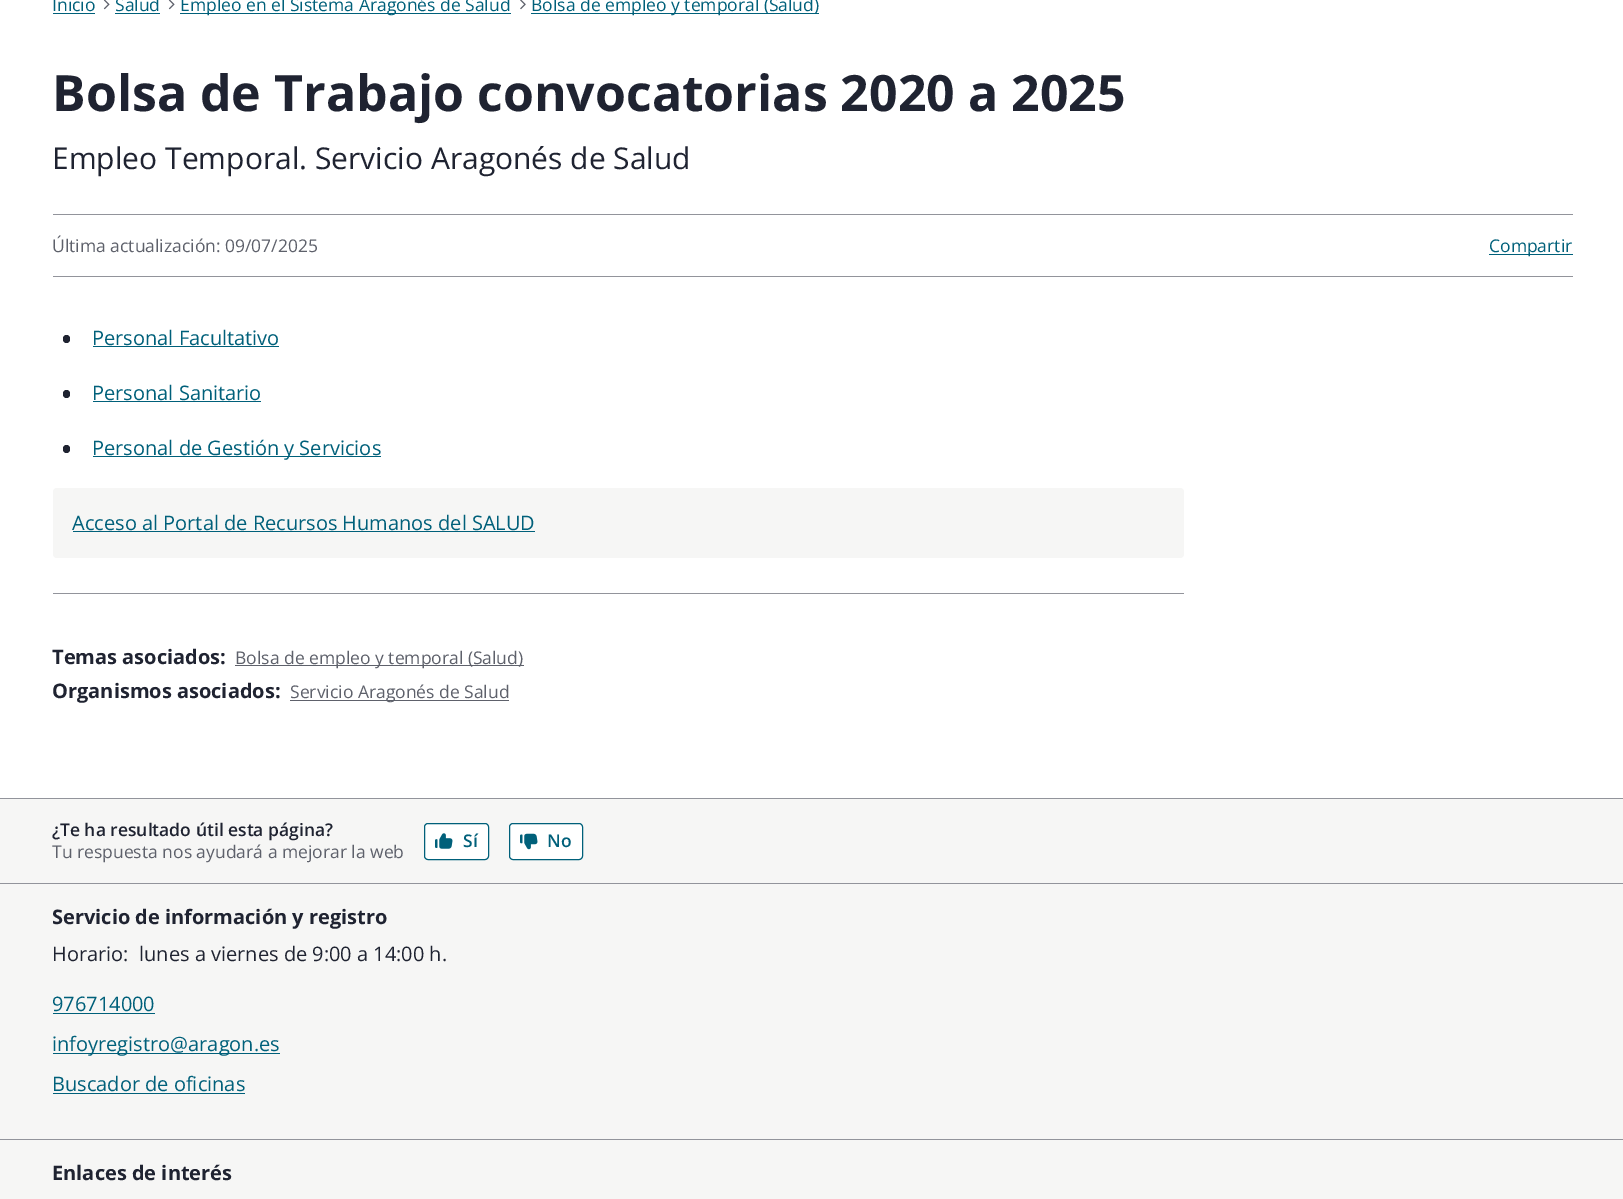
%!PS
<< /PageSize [1623 1199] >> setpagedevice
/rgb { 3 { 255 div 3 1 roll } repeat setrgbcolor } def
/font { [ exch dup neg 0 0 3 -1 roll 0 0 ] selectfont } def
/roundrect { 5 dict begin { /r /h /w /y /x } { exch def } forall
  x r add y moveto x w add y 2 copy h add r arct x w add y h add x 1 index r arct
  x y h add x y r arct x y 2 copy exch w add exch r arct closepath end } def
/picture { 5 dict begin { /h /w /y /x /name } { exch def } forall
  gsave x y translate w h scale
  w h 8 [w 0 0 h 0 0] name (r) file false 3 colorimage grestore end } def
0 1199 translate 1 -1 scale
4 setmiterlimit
255 255 255 rgb
0 0 1623 1199 rectfill
0 96 122 rgb
53 13 42 1 rectfill
(img/1.rgb) 103 0 7 10 picture
115 13 45 1 rectfill
(img/1.rgb) 168 0 7 10 picture
180 13 331 1 rectfill
(img/2.rgb) 520 0 6 10 picture
[
  [531 13 288 1 0 96 122]
  [53 214 1520 1 146 148 155]
  [53 276 1520 1 146 148 155]
  [1489 254 84 1 0 96 122]
] { aload pop rgb rectfill } forall
31 35 49 rgb
63 335 7 8 3.5 roundrect fill
0 96 122 rgb
93 346 186 1 rectfill
31 35 49 rgb
63 390 7 8 3.5 roundrect fill
0 96 122 rgb
93 401 168 1 rectfill
31 35 49 rgb
63 445 7 8 3.5 roundrect fill
0 96 122 rgb
93 456 288 1 rectfill
246 246 245 rgb
53 488 1131 70 4 roundrect fill
[
  [73 531 462 1 0 96 122]
  [53 593 1131 1 146 148 155]
  [235 665 289 1 94 97 107]
  [290 700 219 1 94 97 107]
  [0 799 1623 84 246 246 245]
  [0 798 1623 1 146 148 155]
] { aload pop rgb rectfill } forall
255 255 255 rgb
424.5 823.5 64 36 3.5 roundrect gsave fill grestore
0 96 122 rgb
stroke
(img/3.rgb) 435 833 18 16 picture
255 255 255 rgb
509.5 823.5 73 36 3.5 roundrect gsave fill grestore
0 96 122 rgb
stroke
(img/4.rgb) 520 833 18 17 picture
[
  [0 884 1623 255 246 246 245]
  [0 883 1623 1 146 148 155]
  [53 1013 102 1 0 96 122]
  [53 1053 227 1 0 96 122]
  [53 1093 192 1 0 96 122]
  [0 1140 1623 59 246 246 245]
  [0 1139 1623 1 146 148 155]
] { aload pop rgb rectfill } forall
/OpenSans-Regular 17.5 font
0 96 122 rgb
[
  [(Inicio) 52 11]
  [(Salud) 115 11]
  [(Empleo en el Sistema Aragonés de Salud) 180 11]
  [(Bolsa de empleo y temporal \(Salud\)) 531 11]
] { aload pop moveto show } forall
/OpenSans-Bold 50 font
31 35 49 rgb
52 111 moveto (Bolsa de Trabajo convocatorias 2020 a 2025) show
/OpenSans-Regular 30 font
52 169 moveto (Empleo Temporal. Servicio Aragonés de Salud) show
/OpenSans-Regular 17.5 font
94 97 107 rgb
52 252 moveto (Última actualización: 09/07/2025) show
0 96 122 rgb
1489 252 moveto (Compartir) show
/OpenSans-Regular 20 font
[
  [(Personal Facultativo) 92 345]
  [(Personal Sanitario) 92 400]
  [(Personal de Gestión y Servicios) 92 455]
  [(Acceso al Portal de Recursos Humanos del SALUD) 72 530]
] { aload pop moveto show } forall
/OpenSans-Bold 20 font
31 35 49 rgb
52 664 moveto (Temas asociados:) show
/OpenSans-Regular 17.5 font
94 97 107 rgb
235 664 moveto (Bolsa de empleo y temporal \(Salud\)) show
/OpenSans-Bold 20 font
31 35 49 rgb
52 698 moveto (Organismos asociados:) show
/OpenSans-Regular 17.5 font
94 97 107 rgb
290 698 moveto (Servicio Aragonés de Salud) show
/OpenSans-SemiBold 17.5 font
31 35 49 rgb
52 836 moveto (¿Te ha resultado útil esta página?) show
/OpenSans-Regular 17.5 font
94 97 107 rgb
52 858 moveto (Tu respuesta nos ayudará a mejorar la web) show
/OpenSans-SemiBold 17.5 font
0 96 122 rgb
463 847 moveto (Sí) show
547 847 moveto (No) show
/OpenSans-Bold 20 font
31 35 49 rgb
52 924 moveto (Servicio de información y registro) show
/OpenSans-Regular 20 font
52 961 moveto (Horario:) show
139 961 moveto (lunes a viernes de 9:00 a 14:00 h.) show
0 96 122 rgb
[
  [(976714000) 52 1011]
  [(infoyregistro@aragon.es) 52 1051]
  [(Buscador de oficinas) 52 1091]
] { aload pop moveto show } forall
/OpenSans-Bold 20 font
31 35 49 rgb
52 1180 moveto (Enlaces de interés) show
showpage
